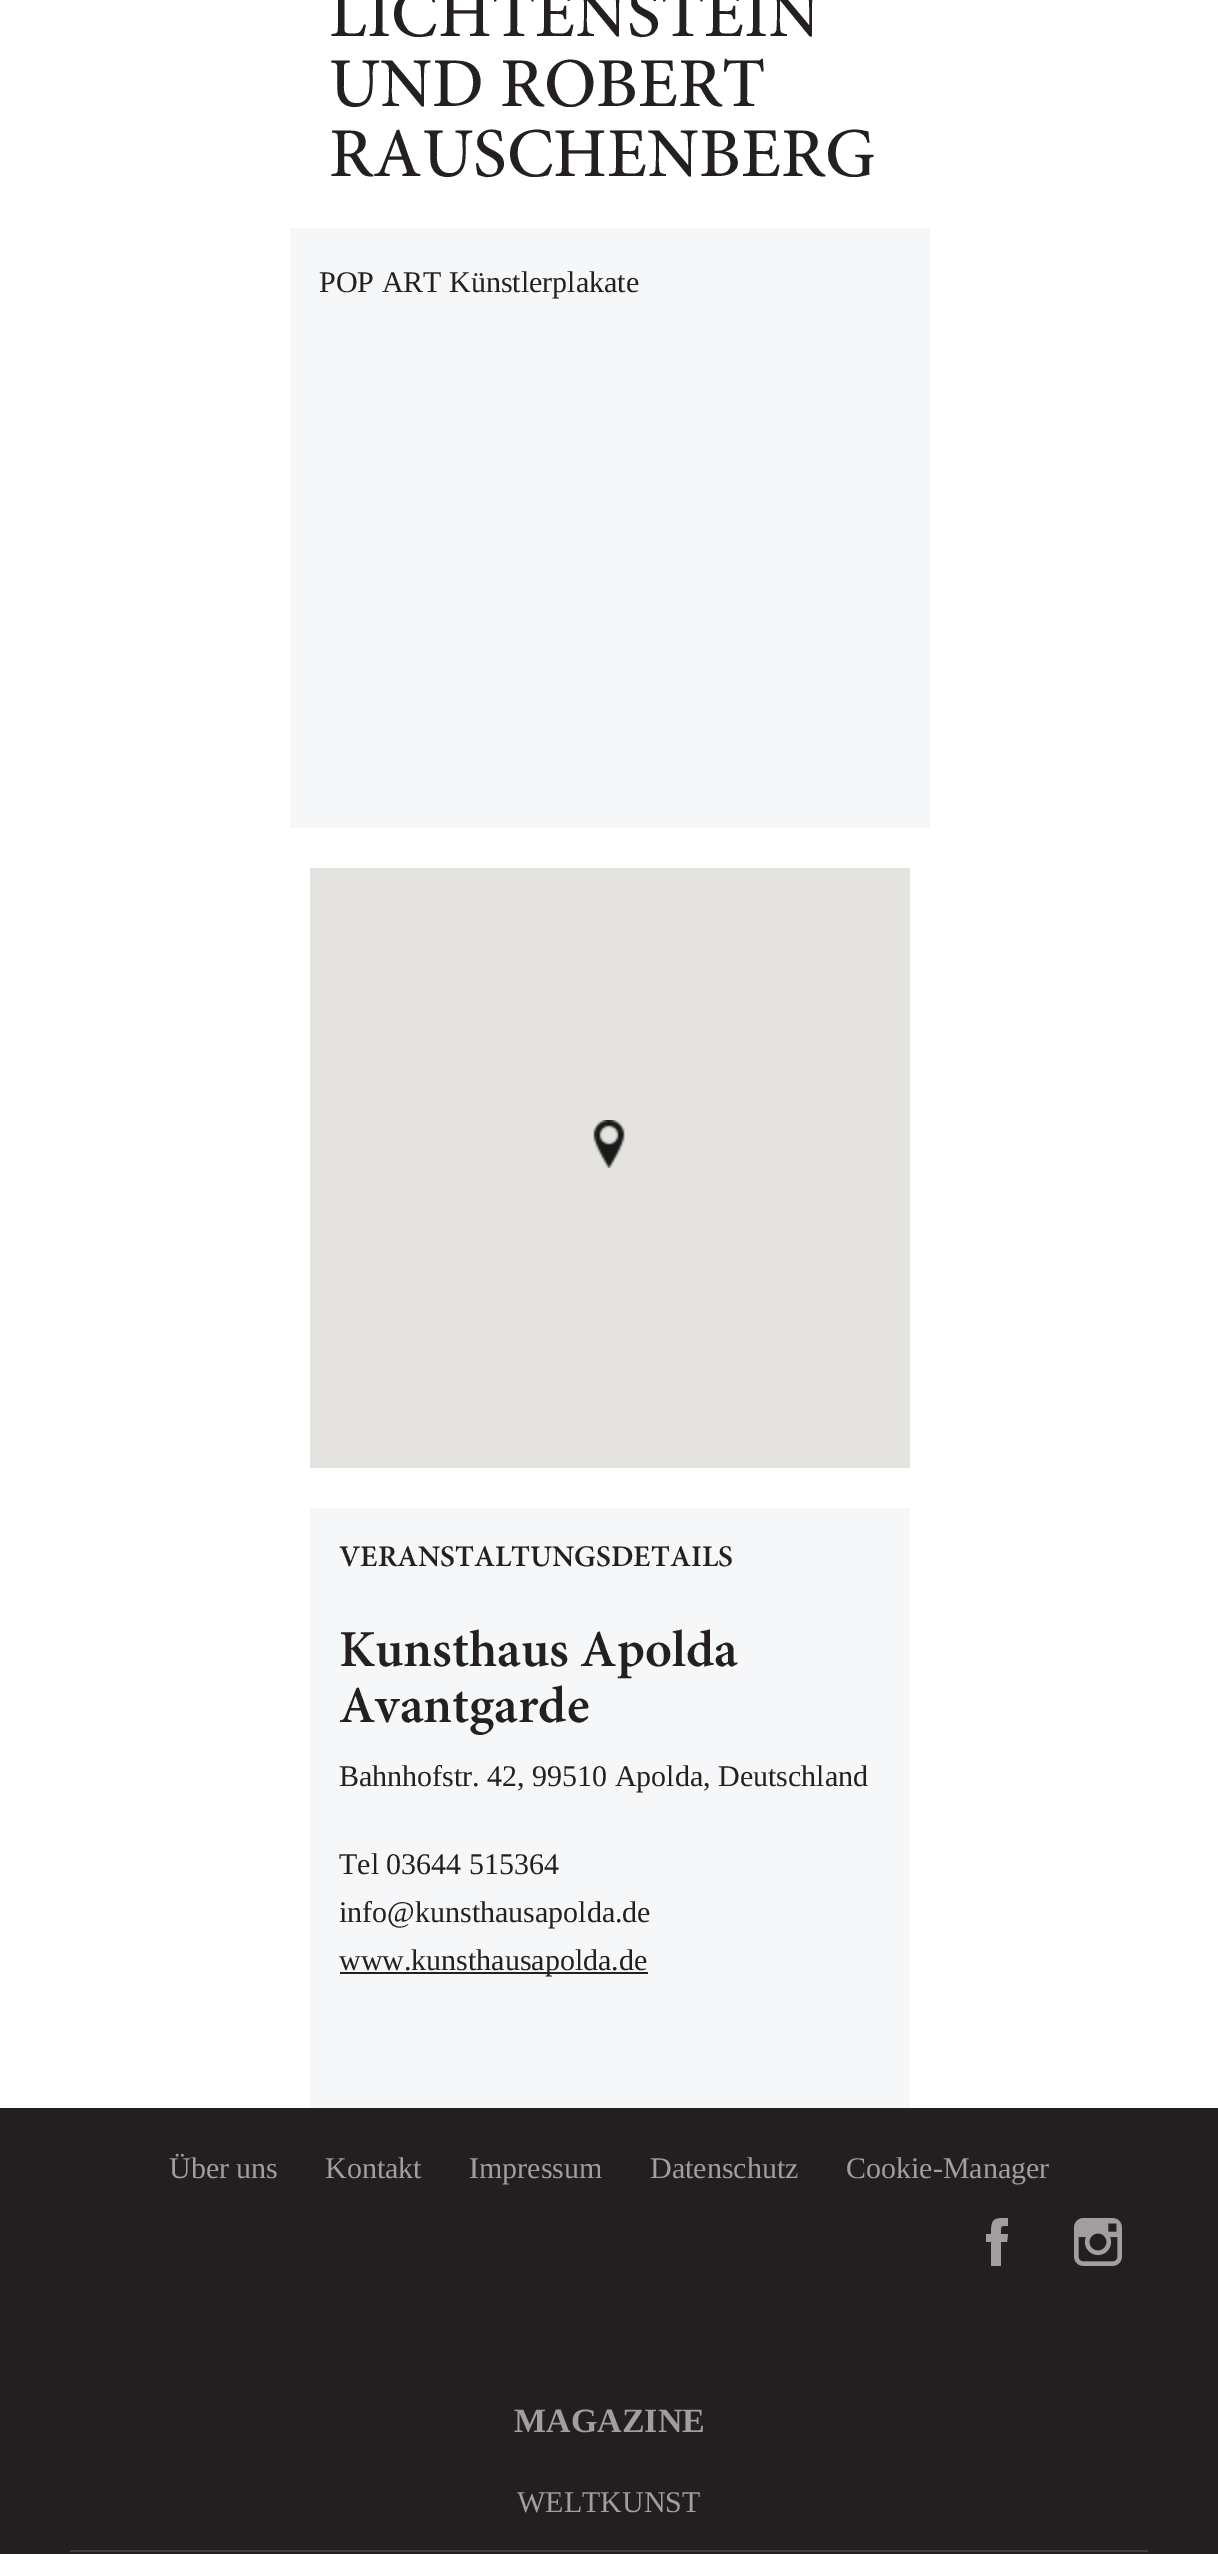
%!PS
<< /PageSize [1218 2554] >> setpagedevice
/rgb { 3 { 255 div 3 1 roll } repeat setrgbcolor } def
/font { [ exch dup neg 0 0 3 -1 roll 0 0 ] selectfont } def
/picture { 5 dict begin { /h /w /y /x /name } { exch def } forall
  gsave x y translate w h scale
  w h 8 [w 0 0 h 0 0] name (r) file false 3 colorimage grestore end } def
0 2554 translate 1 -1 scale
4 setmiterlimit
255 255 255 rgb
0 0 1218 2554 rectfill
246 247 248 rgb
290 228 640 600 rectfill
229 227 223 rgb
310 868 600 600 rectfill
(img/1.rgb) 593 1120 32 48 picture
[
  [310 1508 600 600 246 247 248]
  [340 1972 308 2 36 31 33]
  [0 2108 1218 446 35 31 33]
] { aload pop rgb rectfill } forall
160 158 159 rgb
1008 2234 moveto 1001 2234 lineto 1001 2225 1000 2226 1008 2226 curveto 1008 2218 lineto 994 2218 991 2218 991 2234 curveto 986 2234 lineto 986 2242 lineto 991 2242 lineto 991 2266 lineto 1001 2266 lineto 1001 2242 lineto 1007 2242 lineto closepath eofill
(img/2.rgb) 1074 2218 48 48 picture
66 61 63 rgb
70 2550 1078 2 rectfill
/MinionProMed-Medium 70 font
36 31 33 rgb
[
  [(LICHTENSTEIN) 329 36]
  [(UND ROBERT) 329 106]
  [(RAUSCHENBERG) 329 176]
] { aload pop moveto show } forall
/LiberationSerif-Regular 30 font
319 292 moveto (POP ART Künstlerplakate) show
/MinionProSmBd-SemiBold 30 font
339 1566 moveto (VERANSTALTUNGSDETAILS) show
/MinionProSmBd-SemiBold 52 font
339 1666 moveto (Kunsthaus Apolda) show
339 1722 moveto (Avantgarde) show
/LiberationSerif-Regular 30 font
[
  [(Bahnhofstr. 42, 99510 Apolda, Deutschland) 339 1786]
  [(Tel 03644 515364) 339 1874]
  [(info@kunsthausapolda.de) 339 1922]
  [(www.kunsthausapolda.de) 339 1970]
] { aload pop moveto show } forall
160 158 159 rgb
[
  [(Über uns) 169 2178]
  [(Kontakt) 325 2178]
  [(Impressum) 469 2178]
  [(Datenschutz) 650 2178]
  [(Cookie-Manager) 846 2178]
] { aload pop moveto show } forall
/LiberationSerif-Bold 34 font
514 2432 moveto (MAGAZINE) show
/LiberationSerif-Regular 30 font
517 2512 moveto (WELTKUNST) show
showpage
